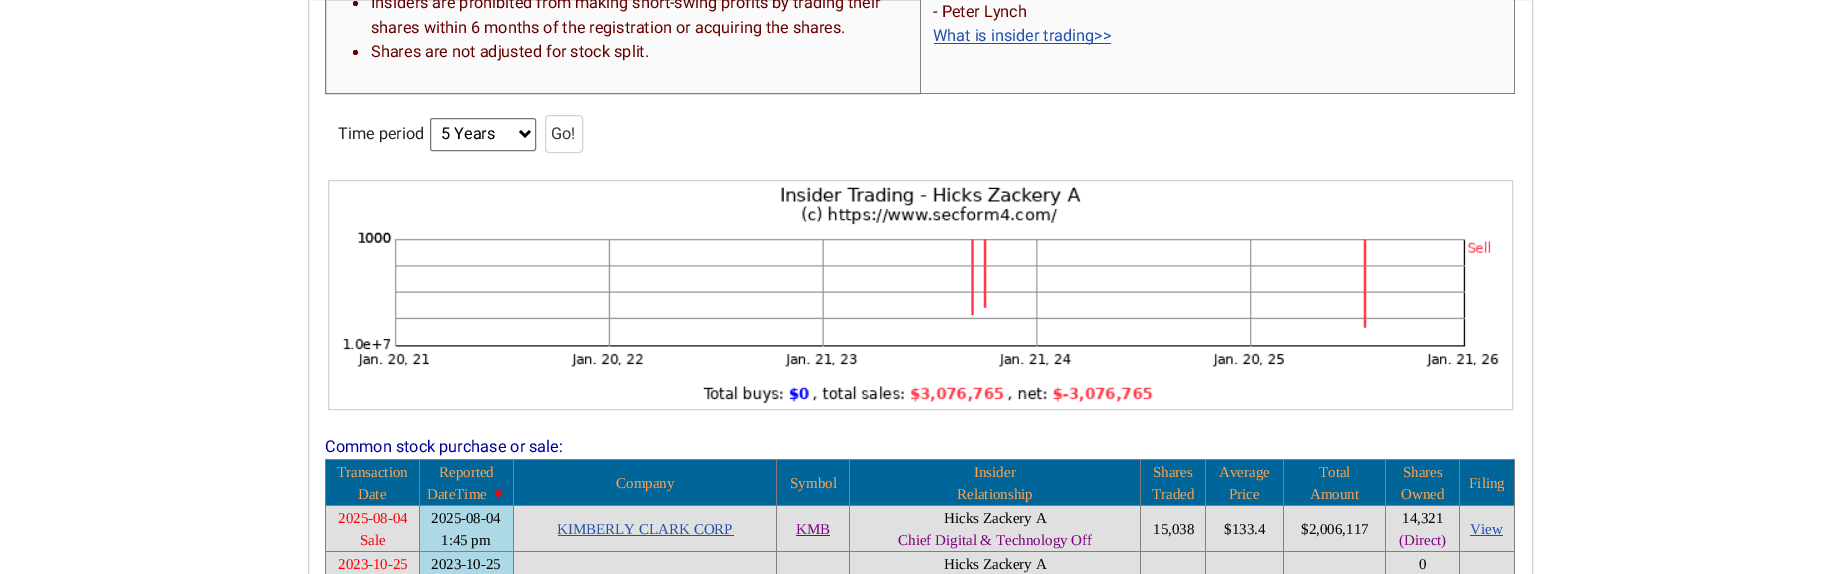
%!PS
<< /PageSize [1840 574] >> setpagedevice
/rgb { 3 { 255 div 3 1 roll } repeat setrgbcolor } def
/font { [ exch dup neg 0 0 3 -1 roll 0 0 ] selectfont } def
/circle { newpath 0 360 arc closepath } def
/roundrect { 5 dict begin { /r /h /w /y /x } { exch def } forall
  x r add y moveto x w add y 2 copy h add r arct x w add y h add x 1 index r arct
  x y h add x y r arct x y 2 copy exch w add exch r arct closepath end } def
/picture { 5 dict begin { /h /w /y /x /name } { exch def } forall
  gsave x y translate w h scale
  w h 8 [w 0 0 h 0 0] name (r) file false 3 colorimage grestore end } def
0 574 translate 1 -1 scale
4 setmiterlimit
255 255 255 rgb
0 0 1840 574 rectfill
211 211 211 rgb
308.5 -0.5 1224 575 rectstroke
251 250 250 rgb
325.5 -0.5 moveto 920.5 -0.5 lineto 920.5 93.5 lineto 325.5 93.5 lineto closepath gsave fill grestore
128 128 128 rgb
stroke
102 0 0 rgb
355.5 3.5 2.5 circle fill
355.5 52.5 2.5 circle fill
[
  [921 0 593 93 251 250 250]
  [1514 0 1 94 128 128 128]
  [921 93 594 1 128 128 128]
  [934 43 177 1 34 79 170]
] { aload pop rgb rectfill } forall
118 118 118 rgb
430.5 118.5 105 32 2 roundrect stroke
0 0 0 rgb
2.5 setlinewidth
520 131 moveto 525 136 lineto 530 131 lineto stroke
206 212 218 rgb
1 setlinewidth
545.5 115.5 37 37 3.5 roundrect stroke
211 211 211 rgb
328.5 180.5 1184 229 rectstroke
(img/1.rgb) 343 187 1156 216 picture
[
  [326 506 1188 68 224 224 224]
  [326 460 93 45 0 102 153]
  [1459 459 56 1 128 128 128]
  [1459 505 56 1 128 128 128]
  [1459 551 56 1 128 128 128]
  [1459 551 1 23 128 128 128]
  [1385 551 75 1 128 128 128]
  [1459 505 1 48 128 128 128]
  [1385 505 75 1 128 128 128]
  [1459 459 1 47 128 128 128]
  [1385 459 75 1 128 128 128]
  [1385 551 1 23 128 128 128]
  [1283 551 103 1 128 128 128]
  [1385 505 1 48 128 128 128]
  [1283 505 103 1 128 128 128]
  [1385 459 1 47 128 128 128]
  [1283 459 103 1 128 128 128]
  [1283 551 1 23 128 128 128]
  [1205 551 79 1 128 128 128]
  [1283 505 1 48 128 128 128]
  [1205 505 79 1 128 128 128]
  [1283 459 1 47 128 128 128]
  [1205 459 79 1 128 128 128]
  [1205 551 1 23 128 128 128]
  [1140 551 66 1 128 128 128]
  [1205 505 1 48 128 128 128]
  [1140 505 66 1 128 128 128]
  [1205 459 1 47 128 128 128]
  [1140 459 66 1 128 128 128]
  [1140 551 1 23 128 128 128]
  [849 551 292 1 128 128 128]
  [1140 505 1 48 128 128 128]
  [849 505 292 1 128 128 128]
  [1140 459 1 47 128 128 128]
  [849 459 292 1 128 128 128]
  [849 551 1 23 128 128 128]
  [776 551 74 1 128 128 128]
  [849 505 1 48 128 128 128]
  [776 505 74 1 128 128 128]
  [849 459 1 47 128 128 128]
  [776 459 74 1 128 128 128]
  [514 460 335 45 0 102 153]
  [776 551 1 23 128 128 128]
  [513 551 265 1 128 128 128]
  [776 505 1 48 128 128 128]
  [513 505 265 1 128 128 128]
  [776 459 1 47 128 128 128]
  [513 459 265 1 128 128 128]
  [420 506 93 68 173 216 230]
  [513 551 1 23 128 128 128]
  [419 551 95 1 128 128 128]
  [513 505 1 48 128 128 128]
  [419 505 95 1 128 128 128]
  [513 459 1 47 128 128 128]
  [419 459 95 1 128 128 128]
  [419 551 1 23 128 128 128]
  [325 551 95 1 128 128 128]
  [419 505 1 48 128 128 128]
  [325 505 95 1 128 128 128]
  [419 459 1 47 128 128 128]
  [325 459 95 1 128 128 128]
  [325 551 1 23 128 128 128]
  [325 505 1 48 128 128 128]
  [325 459 1 47 128 128 128]
  [420 460 93 45 0 102 153]
  [850 460 290 45 0 102 153]
  [1141 460 64 45 0 102 153]
  [1206 460 77 45 0 102 153]
  [1284 460 101 45 0 102 153]
  [1386 460 73 45 0 102 153]
  [1460 460 54 45 0 102 153]
  [1514 551 1 23 128 128 128]
  [1514 505 1 48 128 128 128]
  [1514 459 1 47 128 128 128]
  [558 535 176 1 34 79 170]
  [796 535 34 1 128 0 128]
  [1470 535 33 1 34 79 170]
] { aload pop rgb rectfill } forall
/Roboto-Regular 16.25 font
102 0 0 rgb
[
  [(Insiders are prohibited from making short-swing profits by trading their) 371 8]
  [(shares within 6 months of the registration or acquiring the shares.) 371 33]
  [(Shares are not adjusted for stock split.) 371 57]
  [(- Peter Lynch) 933 17]
] { aload pop moveto show } forall
34 79 170 rgb
933 41 moveto (What is insider trading>>) show
34 38 42 rgb
338 139 moveto (Time period) show
0 0 0 rgb
441 139 moveto (5 Years) show
53 59 65 rgb
551 139 moveto (Go!) show
0 0 153 rgb
325 452 moveto (Common stock purchase or sale:) show
/LiberationSerif-Regular 15 font
255 163 79 rgb
[
  [(Transaction) 337 477]
  [(Date) 358 499]
  [(Reported) 439 477]
  [(DateTime) 427 499]
] { aload pop moveto show } forall
/LiberationSerif-Bold 15 font
255 0 0 rgb
491 499 moveto (▼) show
/LiberationSerif-Regular 15 font
255 163 79 rgb
[
  [(Company) 616 488]
  [(Symbol) 790 488]
  [(Insider) 974 477]
  [(Relationship) 957 499]
  [(Shares) 1153 477]
  [(Traded) 1152 499]
  [(Average) 1219 477]
  [(Price) 1229 499]
  [(Total) 1319 477]
  [(Amount) 1310 499]
  [(Shares) 1403 477]
  [(Owned) 1401 499]
  [(Filing) 1469 488]
] { aload pop moveto show } forall
255 0 0 rgb
338 523 moveto (2025-08-04) show
360 545 moveto (Sale) show
0 0 0 rgb
431 523 moveto (2025-08-04) show
441 545 moveto (1:45 pm) show
34 79 170 rgb
557 534 moveto (KIMBERLY CLARK CORP) show
128 0 128 rgb
796 534 moveto (KMB) show
0 0 0 rgb
944 523 moveto (Hicks Zackery A) show
128 0 128 rgb
898 545 moveto (Chief Digital & Technology Off) show
0 0 0 rgb
[
  [(15,038) 1153 534]
  [($133.4) 1224 534]
  [($2,006,117) 1301 534]
  [(14,321) 1402 523]
] { aload pop moveto show } forall
128 0 128 rgb
1399 545 moveto (\(Direct\)) show
34 79 170 rgb
1470 534 moveto (View) show
255 0 0 rgb
338 569 moveto (2023-10-25) show
0 0 0 rgb
[
  [(2023-10-25) 431 569]
  [(Hicks Zackery A) 944 569]
  [(0) 1419 569]
] { aload pop moveto show } forall
showpage
